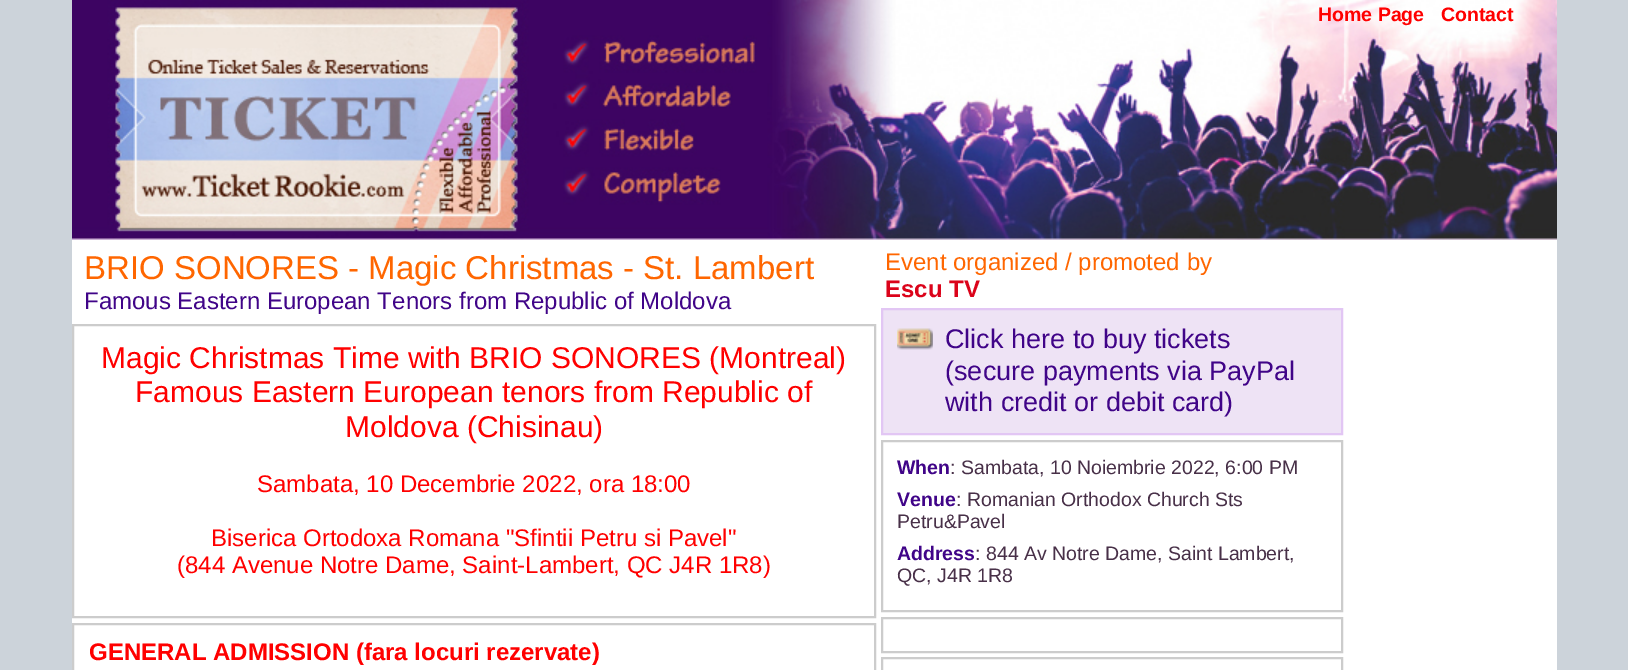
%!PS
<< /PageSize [1628 670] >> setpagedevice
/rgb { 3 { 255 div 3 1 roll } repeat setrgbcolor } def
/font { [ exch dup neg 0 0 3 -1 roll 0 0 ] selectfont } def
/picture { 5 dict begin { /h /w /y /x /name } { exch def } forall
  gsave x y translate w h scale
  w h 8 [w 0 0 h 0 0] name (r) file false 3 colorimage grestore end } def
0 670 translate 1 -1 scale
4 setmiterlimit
204 211 218 rgb
0 0 1628 670 rectfill
255 255 255 rgb
72 240 1485 430 rectfill
(img/1.rgb) 72 0 1485 240 picture
204 204 204 rgb
2 setlinewidth
73 325 802 292 rectstroke
73 624 802 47 rectstroke
238 227 245 rgb
882 309 moveto 1342 309 lineto 1342 434 lineto 882 434 lineto closepath gsave fill grestore
226 198 244 rgb
stroke
(img/2.rgb) 897 328 36 22 picture
204 204 204 rgb
882 441 460 170 rectstroke
882 618 460 34 rectstroke
882 658 460 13 rectstroke
/LiberationSans-Bold 19.5 font
255 0 0 rgb
1318 21 moveto (Home Page) show
1441 21 moveto (Contact) show
/LiberationSans-Regular 33 font
255 102 0 rgb
84 279 moveto (BRIO SONORES - Magic Christmas - St. Lambert) show
/LiberationSans-Regular 24 font
64 4 136 rgb
84 309 moveto (Famous Eastern European Tenors from Republic of Moldova) show
/LiberationSans-Regular 30 font
255 0 0 rgb
[
  [(Magic Christmas Time with BRIO SONORES \(Montreal\)) 101 368]
  [(Famous Eastern European tenors from Republic of) 135 402]
  [(Moldova \(Chisinau\)) 345 437]
] { aload pop moveto show } forall
/LiberationSans-Regular 24 font
[
  [(Sambata, 10 Decembrie 2022, ora 18:00) 257 492]
  [(Biserica Ortodoxa Romana "Sfintii Petru si Pavel") 211 546]
  [(\(844 Avenue Notre Dame, Saint-Lambert, QC J4R 1R8\)) 177 573]
] { aload pop moveto show } forall
/LiberationSans-Bold 24 font
89 660 moveto (GENERAL ADMISSION \(fara locuri rezervate\)) show
/LiberationSans-Regular 24 font
255 102 0 rgb
885 270 moveto (Event organized / promoted by) show
/LiberationSans-Bold 24 font
219 3 26 rgb
885 297 moveto (Escu TV) show
/LiberationSans-Regular 27 font
64 4 136 rgb
[
  [(Click here to buy tickets) 945 348]
  [(\(secure payments via PayPal) 945 380]
  [(with credit or debit card\)) 945 411]
] { aload pop moveto show } forall
/LiberationSans-Bold 19.5 font
897 474 moveto (When) show
/LiberationSans-Regular 19.5 font
72 48 72 rgb
950 474 moveto (: Sambata, 10 Noiembrie 2022, 6:00 PM) show
/LiberationSans-Bold 19.5 font
64 4 136 rgb
897 506 moveto (Venue) show
/LiberationSans-Regular 19.5 font
72 48 72 rgb
956 506 moveto (: Romanian Orthodox Church Sts) show
897 528 moveto (Petru&Pavel) show
/LiberationSans-Bold 19.5 font
64 4 136 rgb
897 560 moveto (Address) show
/LiberationSans-Regular 19.5 font
72 48 72 rgb
975 560 moveto (: 844 Av Notre Dame, Saint Lambert,) show
897 582 moveto (QC, J4R 1R8) show
showpage
